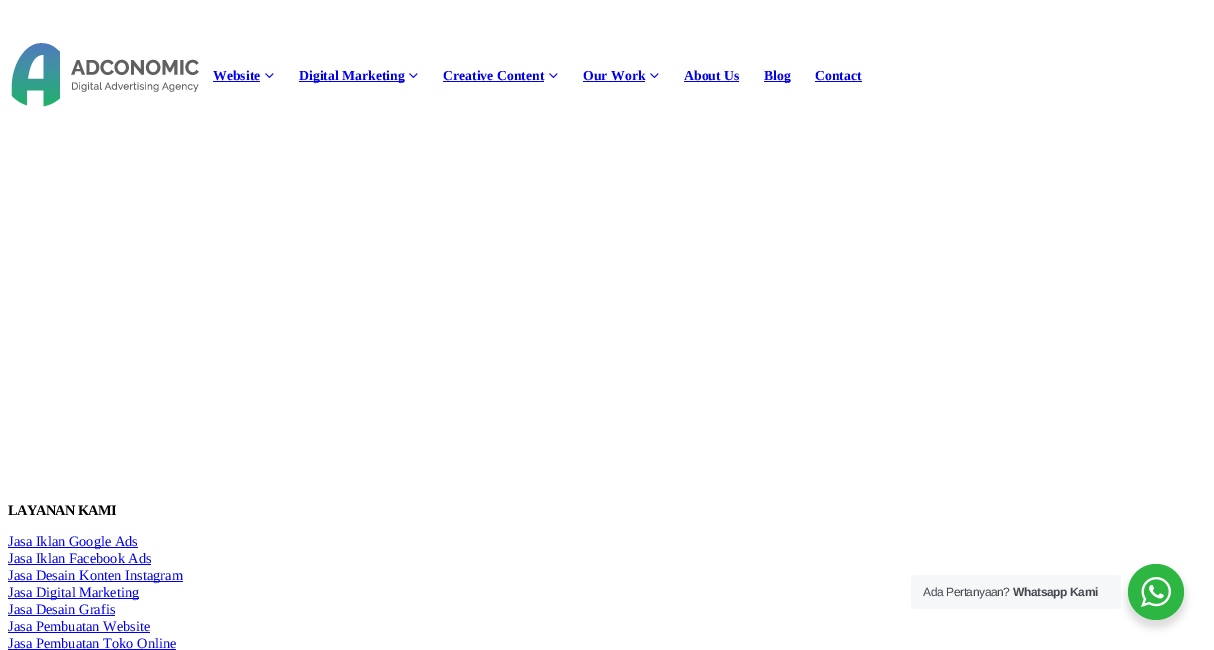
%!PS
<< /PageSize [1214 650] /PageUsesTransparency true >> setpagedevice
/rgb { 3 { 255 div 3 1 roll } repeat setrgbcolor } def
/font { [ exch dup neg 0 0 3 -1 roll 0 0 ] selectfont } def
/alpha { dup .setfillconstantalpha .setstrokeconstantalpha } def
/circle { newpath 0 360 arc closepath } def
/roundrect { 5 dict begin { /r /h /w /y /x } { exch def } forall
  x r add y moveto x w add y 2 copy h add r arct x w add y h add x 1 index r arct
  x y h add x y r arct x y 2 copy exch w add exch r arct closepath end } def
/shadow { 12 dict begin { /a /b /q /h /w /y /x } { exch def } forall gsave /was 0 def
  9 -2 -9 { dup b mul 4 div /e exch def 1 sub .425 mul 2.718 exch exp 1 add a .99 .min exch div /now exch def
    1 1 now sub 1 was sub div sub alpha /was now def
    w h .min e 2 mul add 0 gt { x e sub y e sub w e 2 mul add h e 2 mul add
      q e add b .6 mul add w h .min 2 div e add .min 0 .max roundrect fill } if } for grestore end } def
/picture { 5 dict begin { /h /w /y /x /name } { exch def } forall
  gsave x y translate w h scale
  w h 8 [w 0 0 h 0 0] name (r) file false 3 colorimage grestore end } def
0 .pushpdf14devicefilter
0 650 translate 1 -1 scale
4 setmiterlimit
255 255 255 rgb
0 0 1214 650 rectfill
(img/1.rgb) 11 43 188 64 picture
0 0 238 rgb
213 81 47 1 rectfill
(img/2.rgb) 265 73 9 6 picture
299 81 105 1 rectfill
(img/2.rgb) 409 73 9 6 picture
443 81 101 1 rectfill
(img/2.rgb) 549 73 9 6 picture
583 81 62 1 rectfill
(img/2.rgb) 650 73 9 6 picture
[
  [684 81 55 1 0 0 238]
  [764 81 26 1 0 0 238]
  [815 81 47 1 0 0 238]
  [8 547 130 1 0 0 238]
  [8 564 143 1 0 0 238]
  [8 581 175 1 0 0 238]
  [8 598 131 1 0 0 238]
  [8 615 107 1 0 0 238]
  [8 632 142 1 0 0 238]
  [8 649 168 1 0 0 238]
] { aload pop rgb rectfill } forall
0 0 0 rgb
1126 568 60 60 30 4 0.14 shadow
245 247 249 rgb
911 575 210 34 4 roundrect fill
45 183 66 rgb
1156 592 28 circle fill
(img/3.rgb) 1141 577 30 30 picture
/LiberationSerif-Bold 13.75 font
0 0 238 rgb
[
  [(Website) 213 80]
  [(Digital Marketing) 299 80]
  [(Creative Content) 443 80]
  [(Our Work) 583 80]
  [(About Us) 684 80]
  [(Blog) 764 80]
  [(Contact) 815 80]
] { aload pop moveto show } forall
/LiberationSerif-Bold 14.4 font
0 0 0 rgb
8 515 moveto -0.75 0 (LAYANAN KAMI) ashow
/LiberationSerif-Regular 14.4 font
0 0 238 rgb
[
  [(Jasa Iklan Google Ads) 8 546]
  [(Jasa Iklan Facebook Ads) 8 563]
  [(Jasa Desain Konten Instagram) 8 580]
  [(Jasa Digital Marketing) 8 597]
  [(Jasa Desain Grafis) 8 614]
  [(Jasa Pembuatan Website) 8 631]
  [(Jasa Pembuatan Toko Online) 8 648]
] { aload pop moveto show } forall
/LiberationSans-Regular 12 font
67 71 78 rgb
923 596 moveto -0.4 0 (Ada Pertanyaan?) ashow
/LiberationSans-Bold 12 font
1013 596 moveto -0.4 0 (Whatsapp Kami) ashow
.poppdf14devicefilter showpage
